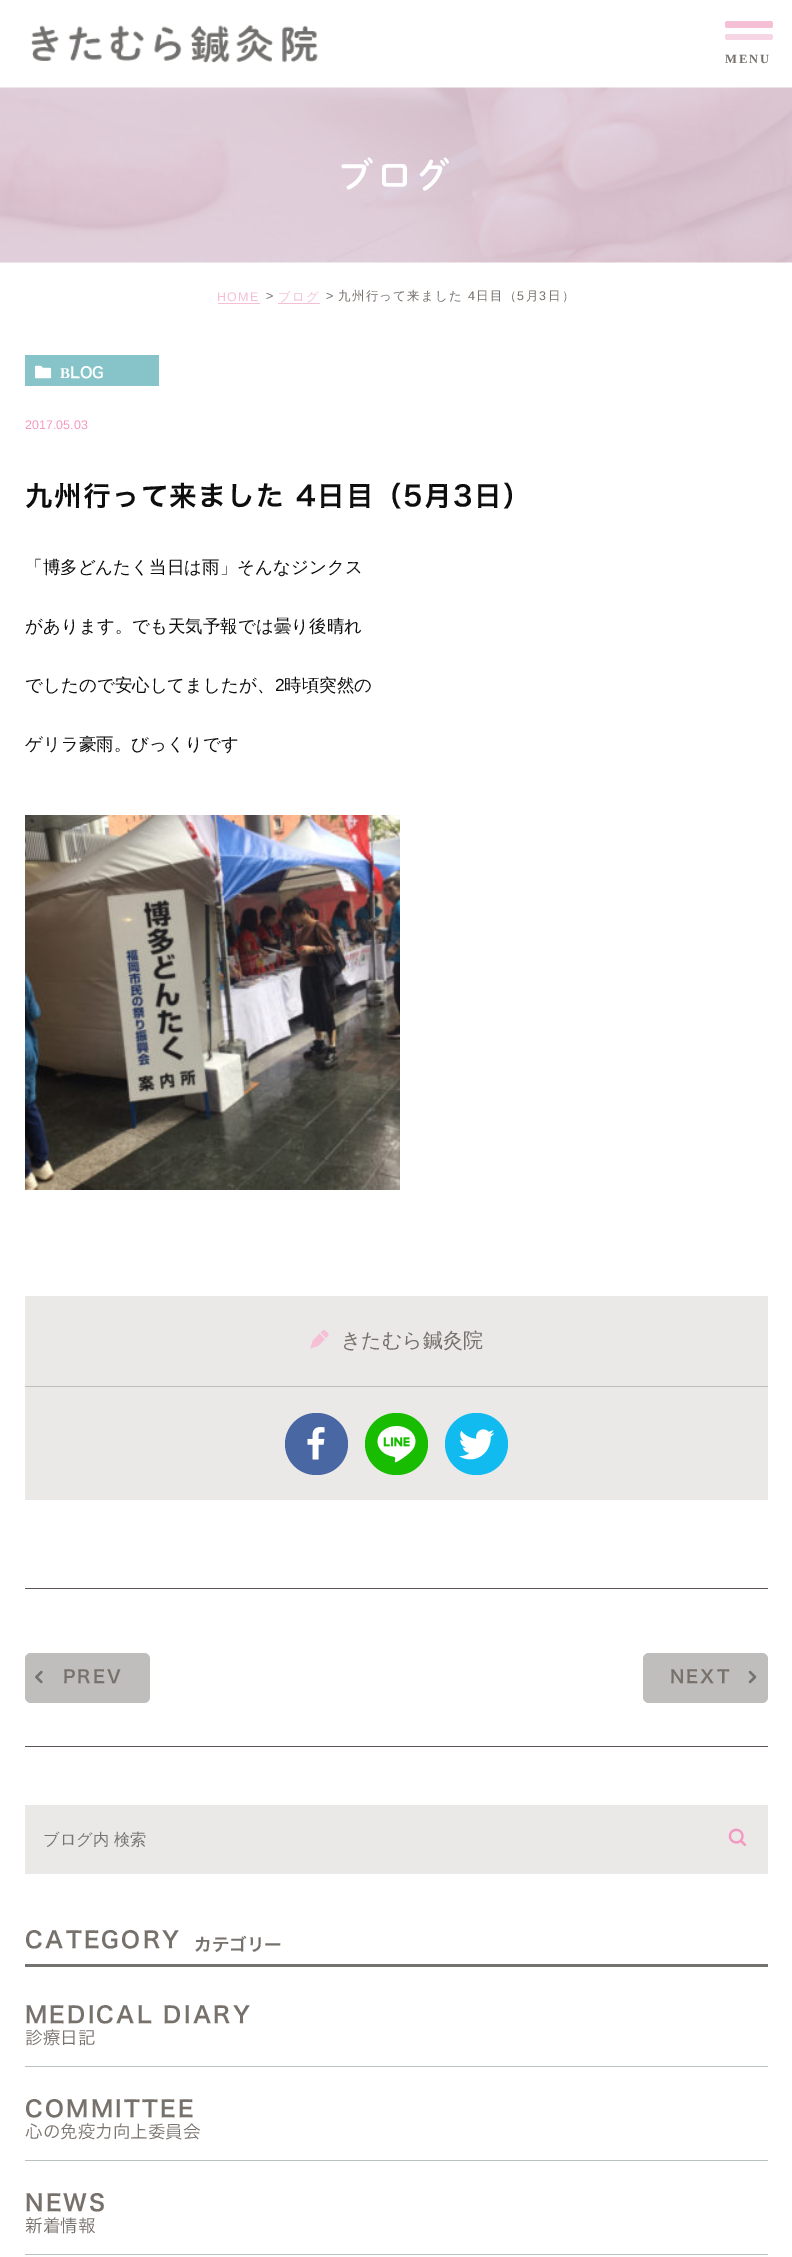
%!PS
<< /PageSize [792 2257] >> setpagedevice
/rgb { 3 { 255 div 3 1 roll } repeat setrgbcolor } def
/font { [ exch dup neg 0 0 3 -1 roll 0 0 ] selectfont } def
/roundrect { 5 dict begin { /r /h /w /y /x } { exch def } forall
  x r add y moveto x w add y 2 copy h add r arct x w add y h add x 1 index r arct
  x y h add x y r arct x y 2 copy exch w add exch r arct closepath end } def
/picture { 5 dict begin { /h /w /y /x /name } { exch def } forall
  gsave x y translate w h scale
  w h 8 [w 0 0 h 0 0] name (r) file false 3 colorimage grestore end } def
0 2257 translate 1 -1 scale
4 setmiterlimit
255 255 255 rgb
0 0 792 2257 rectfill
(img/1.rgb) 31 25 287 38 picture
245 191 214 rgb
725 21 48 7 2.5 roundrect fill
246 214 228 rgb
725 34 48 6 2.5 roundrect fill
(img/2.rgb) 0 87 792 176 picture
[
  [218 303 42 1 245 191 214]
  [278 303 42 1 245 191 214]
  [25 355 134 31 134 196 201]
] { aload pop rgb rectfill } forall
(img/3.rgb) 35 365 17 14 picture
(img/4.rgb) 25 815 375 375 picture
235 233 231 rgb
25 1296 743 204 rectfill
191 190 189 rgb
25 1386 743 1 rectfill
(img/5.rgb) 310 1330 19 19 picture
73 103 163 rgb
285 1413 63 62 31 roundrect fill
(img/6.rgb) 307 1427 18 33 picture
24 188 1 rgb
365 1413 63 62 31 roundrect fill
(img/7.rgb) 377 1426 39 37 picture
17 187 239 rgb
445 1413 63 62 31 roundrect fill
(img/8.rgb) 459 1429 36 31 picture
93 85 85 rgb
25 1588 743 1 rectfill
191 190 189 rgb
25 1653 125 50 6 roundrect fill
(img/9.rgb) 35 1670 8 14 picture
643 1653 125 50 6 roundrect fill
(img/10.rgb) 748 1670 9 14 picture
93 85 85 rgb
25 1746 743 1 rectfill
235 233 231 rgb
25 1805 743 69 rectfill
(img/11.rgb) 728 1828 19 18 picture
[
  [25 1964 743 3 117 115 111]
  [25 2066 743 1 184 194 193]
  [25 2160 743 1 184 194 193]
  [25 2254 743 1 184 194 193]
] { aload pop rgb rectfill } forall
/LiberationSerif-Bold 12.5 font
119 113 108 rgb
725 63 moveto 2 0 (MENU) ashow
/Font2-SemiBold 35 font
255 255 255 rgb
338 188 moveto 3.5 0 (ブログ) ashow
/LiberationSans-Regular 12.5 font
245 191 214 rgb
217 301 moveto 1.25 0 (HOME) ashow
119 113 108 rgb
266 300 moveto 1.25 0 (>) ashow
/WenQuanYiZenHei-Medium 12.5 font
245 191 214 rgb
278 301 moveto 1.25 0 (ブログ) ashow
/LiberationSans-Regular 12.5 font
119 113 108 rgb
326 300 moveto 1.25 0 (>) ashow
/WenQuanYiZenHei-Medium 12.5 font
338 300 moveto 1.25 0 (九州行って来ました) ashow
/LiberationSans-Regular 12.5 font
468 300 moveto 1.25 0 (4) ashow
/WenQuanYiZenHei-Medium 12.5 font
476 300 moveto 1.25 0 (日目（) ashow
/LiberationSans-Regular 12.5 font
517 300 moveto 1.25 0 (5) ashow
/WenQuanYiZenHei-Medium 12.5 font
526 300 moveto 1.25 0 (月) ashow
/LiberationSans-Regular 12.5 font
539 300 moveto 1.25 0 (3) ashow
/WenQuanYiZenHei-Medium 12.5 font
548 300 moveto 1.25 0 (日）) ashow
/LiberationSerif-Bold 15 font
255 255 255 rgb
60 378 moveto (B) show
/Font-SemiBold 15 font
70 378 moveto (LOG) show
/LiberationSans-Regular 12.5 font
246 151 192 rgb
25 429 moveto (2017.05.03) show
/Font-SemiBold 27.5 font
15 14 14 rgb
25 506 moveto 1.4 0 (九州行って来ました 4日目（5月3日）) ashow
/WenQuanYiZenHei-Medium 17.5 font
[
  [(「博多どんたく当日は雨」そんなジンクス) 25 573]
  [(があります。でも天気予報では曇り後晴れ) 25 632]
  [(でしたので安心してましたが、) 25 691]
] { aload pop moveto show } forall
/LiberationSans-Regular 17.5 font
275 691 moveto (2) show
/WenQuanYiZenHei-Medium 17.5 font
284 691 moveto (時頃突然の) show
25 750 moveto (ゲリラ豪雨。びっくりです) show
/WenQuanYiZenHei-Medium 20 font
119 113 108 rgb
341 1347 moveto (きたむら鍼灸院) show
/Font-SemiBold 17.5 font
63 1683 moveto 2 0 (PREV) ashow
670 1683 moveto 2 0 (NEXT) ashow
/WenQuanYiZenHei-Medium 16.25 font
117 117 117 rgb
43 1845 moveto (ブログ内 検索) show
/Font-SemiBold 22.5 font
119 113 108 rgb
25 1948 moveto 2.25 0 (CATEGORY) ashow
/Font-SemiBold 17.5 font
194 1951 moveto (カテゴリー) show
/Font-SemiBold 22.5 font
25 2023 moveto 2.25 0 (MEDICAL DIARY) ashow
/Font-Light 17.5 font
25 2044 moveto (診療日記) show
/Font-SemiBold 22.5 font
25 2117 moveto 2.25 0 (COMMITTEE) ashow
/Font-Light 17.5 font
25 2138 moveto (心の免疫力向上委員会) show
/Font-SemiBold 22.5 font
25 2211 moveto 2.25 0 (NEWS) ashow
/Font-Light 17.5 font
25 2232 moveto (新着情報) show
showpage
